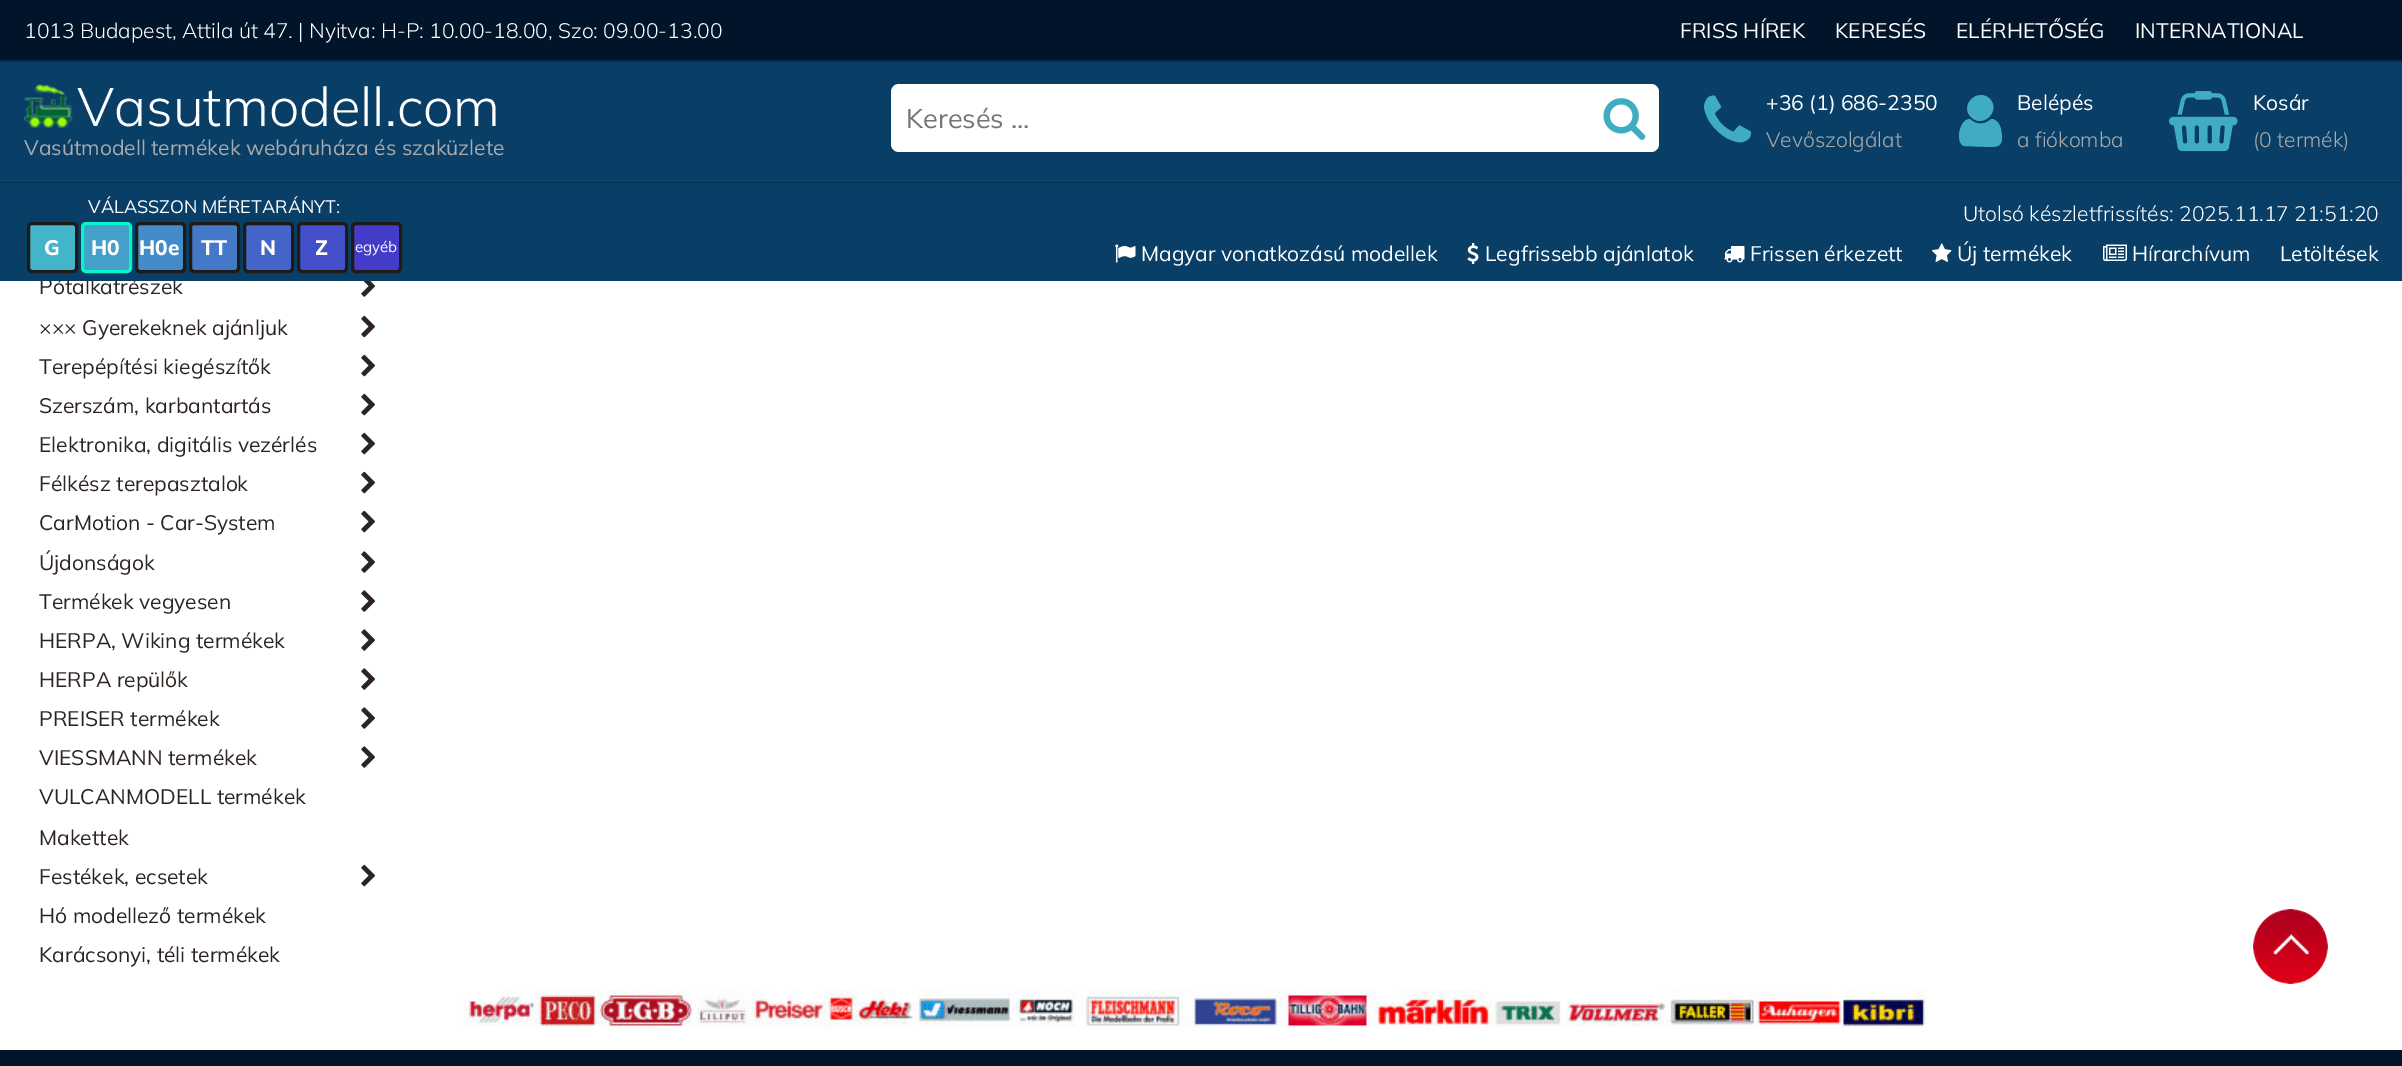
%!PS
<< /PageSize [2402 1066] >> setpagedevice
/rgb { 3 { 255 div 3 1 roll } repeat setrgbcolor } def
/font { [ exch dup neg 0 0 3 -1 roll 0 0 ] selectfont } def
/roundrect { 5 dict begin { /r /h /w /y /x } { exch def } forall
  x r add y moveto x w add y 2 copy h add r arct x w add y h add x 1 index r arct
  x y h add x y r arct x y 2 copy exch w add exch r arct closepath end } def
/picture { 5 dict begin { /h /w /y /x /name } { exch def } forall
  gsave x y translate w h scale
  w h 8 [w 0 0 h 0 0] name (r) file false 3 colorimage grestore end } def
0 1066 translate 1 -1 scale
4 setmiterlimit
255 255 255 rgb
0 0 2402 1066 rectfill
[
  [0 0 2402 60 2 20 42]
  [0 60 2402 2 7 45 72]
  [0 62 2402 120 9 63 102]
  [0 182 2402 1 7 45 72]
] { aload pop rgb rectfill } forall
(img/1.rgb) 24 84 49 44 picture
255 255 255 rgb
891 84 768 68 8 roundrect fill
(img/2.rgb) 1603 98 43 42 picture
(img/3.rgb) 1704 95 48 48 picture
64 172 194 rgb
2002 138 moveto 2002 146 1997 147 1990 147 curveto 1964 146 lineto 1955 143 1959 119 1970 119 curveto 1976 125 1985 125 1991 119 curveto 2000 119 2002 131 2002 138 curveto closepath 1990 99 moveto 2001 111 1983 129 1971 117 curveto 1959 105 1978 87 1990 99 curveto closepath fill
(img/4.rgb) 2169 91 69 61 picture
(img/10.rgb) 361 281 14 16 picture
(img/11.rgb) 361 315 14 23 picture
(img/11.rgb) 361 354 14 23 picture
(img/11.rgb) 361 393 14 23 picture
(img/11.rgb) 361 432 14 23 picture
(img/11.rgb) 361 471 14 23 picture
(img/11.rgb) 361 510 14 23 picture
(img/12.rgb) 361 551 14 22 picture
(img/12.rgb) 361 590 14 22 picture
(img/12.rgb) 361 629 14 22 picture
(img/12.rgb) 361 668 14 22 picture
(img/12.rgb) 361 707 14 22 picture
(img/12.rgb) 361 746 14 22 picture
(img/11.rgb) 361 864 14 23 picture
(img/13.rgb) 463 989 1465 40 picture
2 20 42 rgb
0 1050 2402 16 rectfill
(img/14.rgb) 2253 909 75 75 picture
/Mulish-Light 21 font
255 255 255 rgb
24 38 moveto (1013 Budapest, Attila út 47. | Nyitva: H-P: 10.00-18.00, Szo: 09.00-13.00) show
/Mulish-Regular 21 font
[
  [(FRISS HÍREK) 1680 38]
  [(KERESÉS) 1835 38]
  [(ELÉRHETŐSÉG) 1956 38]
  [(INTERNATIONAL) 2135 38]
] { aload pop moveto show } forall
/Mulish-Light 54 font
77 126 moveto (Vasutmodell.com) show
/Mulish-Regular 21 font
170 170 170 rgb
24 155 moveto (Vasútmodell termékek webáruháza és szaküzlete) show
/Mulish-Regular 27 font
117 117 117 rgb
906 128 moveto (Keresés ...) show
/Mulish-Regular 21 font
255 255 255 rgb
1766 110 moveto (+36 \(1\) 686-2350) show
/Mulish-Light 21 font
170 170 170 rgb
1766 147 moveto (Vevőszolgálat) show
/Mulish-Regular 21 font
255 255 255 rgb
2017 110 moveto (Belépés) show
/Mulish-Light 21 font
170 170 170 rgb
2017 147 moveto (a fiókomba) show
/Mulish-Regular 21 font
255 255 255 rgb
2253 110 moveto (Kosár) show
/Mulish-Light 21 font
170 170 170 rgb
2253 147 moveto (\(0 termék\)) show
/Mulish-Regular 21 font
44 36 33 rgb
39 294 moveto (Pótalkatrészek) show
9 63 102 rgb
0 183 2402 98 rectfill
68 60 201 rgb
352.5 223.5 48 48 3.5 roundrect gsave fill grestore
30 26 23 rgb
3 setlinewidth
stroke
/Mulish-Regular 15 font
255 255 255 rgb
355 252 moveto (egyéb) show
68 80 201 rgb
298.5 223.5 48 48 3.5 roundrect gsave fill grestore
30 26 23 rgb
stroke
/Mulish-ExtraBold 21 font
255 255 255 rgb
315 255 moveto (Z) show
68 100 201 rgb
244.5 223.5 48 48 3.5 roundrect gsave fill grestore
30 26 23 rgb
stroke
255 255 255 rgb
260 255 moveto (N) show
68 120 201 rgb
190.5 223.5 48 48 3.5 roundrect gsave fill grestore
30 26 23 rgb
stroke
255 255 255 rgb
201 255 moveto (TT) show
68 140 201 rgb
136.5 223.5 48 48 3.5 roundrect gsave fill grestore
30 26 23 rgb
stroke
255 255 255 rgb
139 255 moveto (H0e) show
68 160 201 rgb
82.5 223.5 48 48 3.5 roundrect gsave fill grestore
7 245 201 rgb
stroke
255 255 255 rgb
91 255 moveto (H0) show
68 180 201 rgb
28.5 223.5 48 48 3.5 roundrect gsave fill grestore
30 26 23 rgb
stroke
255 255 255 rgb
44 255 moveto (G) show
/Mulish-Regular 18 font
88 213 moveto (VÁLASSZON MÉRETARÁNYT:) show
/Mulish-Regular 21 font
2280 261 moveto (Letöltések) show
2132 261 moveto (Hírarchívum) show
(img/9.rgb) 2103 244 24 17 picture
1957 261 moveto (Új termékek) show
(img/8.rgb) 1932 243 20 19 picture
1750 261 moveto (Frissen érkezett) show
(img/7.rgb) 1724 246 21 17 picture
1485 261 moveto (Legfrissebb ajánlatok) show
(img/6.rgb) 1467 243 12 21 picture
1141 261 moveto (Magyar vonatkozású modellek) show
(img/5.rgb) 1115 244 21 19 picture
/Mulish-Light 21 font
1963 221 moveto (Utolsó készletfrissítés: 2025.11.17 21:51:20) show
/Mulish-Regular 21 font
44 36 33 rgb
[
  [(××× Gyerekeknek ajánljuk) 39 335]
  [(Terepépítési kiegészítők) 39 374]
  [(Szerszám, karbantartás) 39 413]
  [(Elektronika, digitális vezérlés) 39 452]
  [(Félkész terepasztalok) 39 491]
  [(CarMotion - Car-System) 39 530]
  [(Újdonságok) 39 570]
  [(Termékek vegyesen) 39 609]
  [(HERPA, Wiking termékek) 39 648]
  [(HERPA repülők) 39 687]
  [(PREISER termékek) 39 726]
  [(VIESSMANN termékek) 39 765]
  [(VULCANMODELL termékek) 39 804]
  [(Makettek) 39 845]
  [(Festékek, ecsetek) 39 884]
  [(Hó modellező termékek) 39 923]
  [(Karácsonyi, téli termékek) 39 962]
] { aload pop moveto show } forall
showpage
